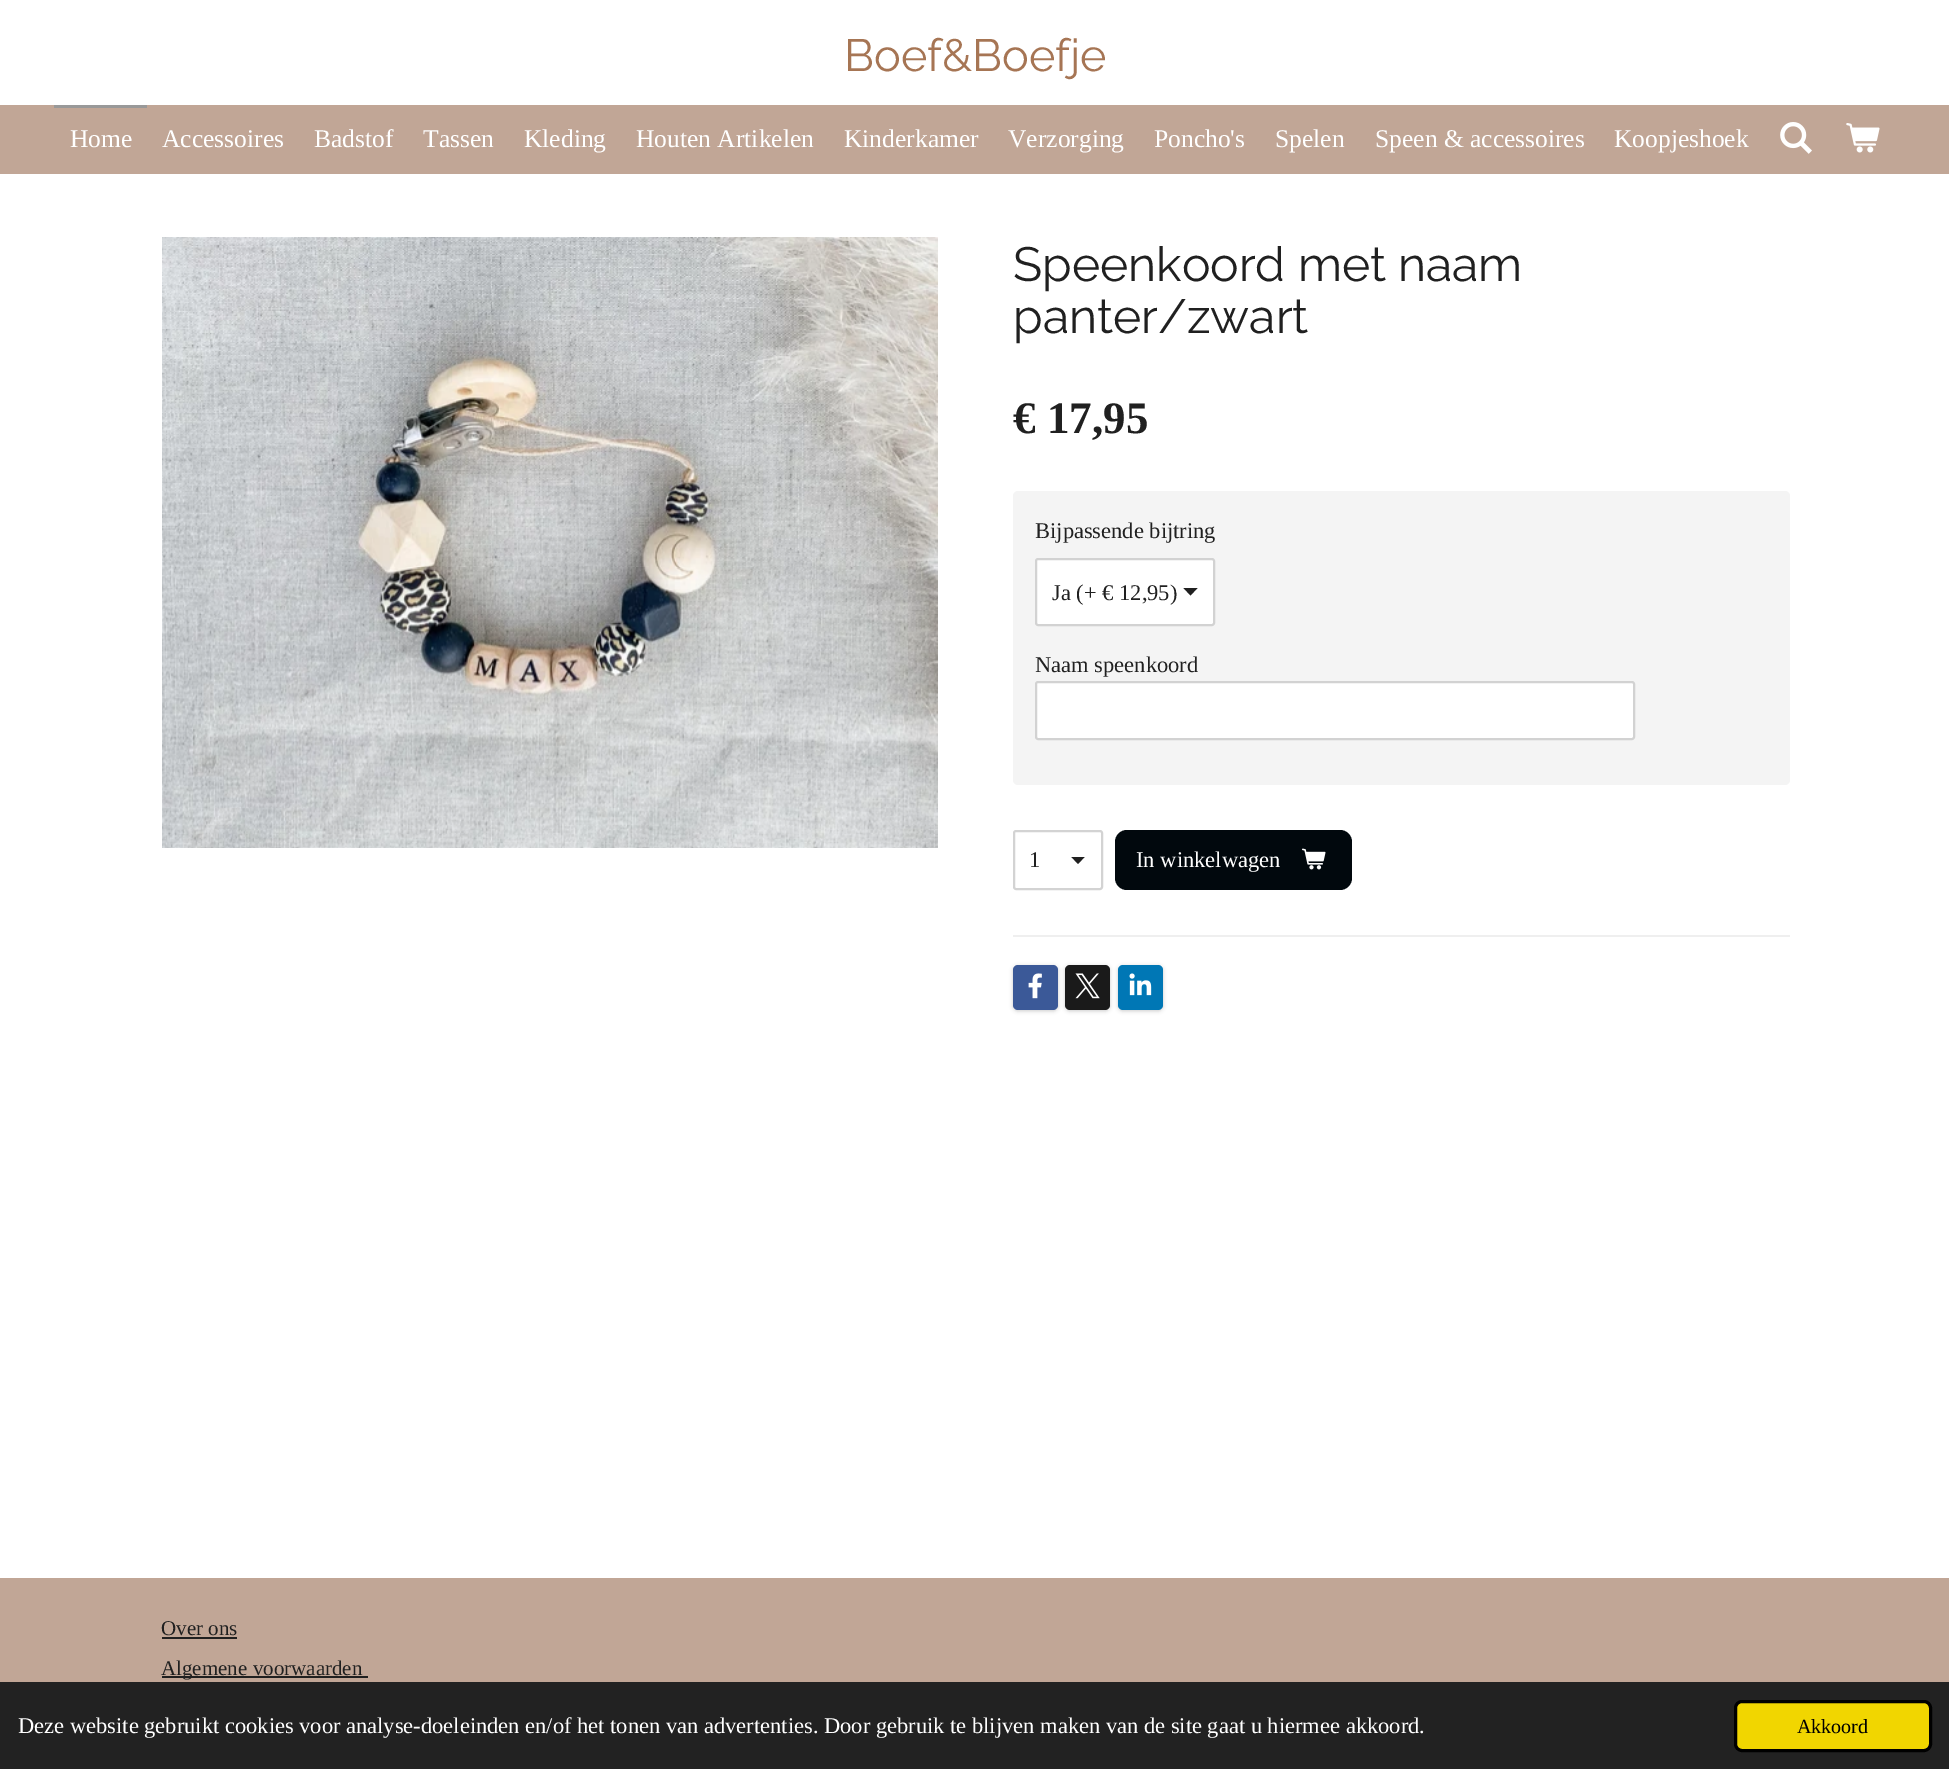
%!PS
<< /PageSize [1949 1769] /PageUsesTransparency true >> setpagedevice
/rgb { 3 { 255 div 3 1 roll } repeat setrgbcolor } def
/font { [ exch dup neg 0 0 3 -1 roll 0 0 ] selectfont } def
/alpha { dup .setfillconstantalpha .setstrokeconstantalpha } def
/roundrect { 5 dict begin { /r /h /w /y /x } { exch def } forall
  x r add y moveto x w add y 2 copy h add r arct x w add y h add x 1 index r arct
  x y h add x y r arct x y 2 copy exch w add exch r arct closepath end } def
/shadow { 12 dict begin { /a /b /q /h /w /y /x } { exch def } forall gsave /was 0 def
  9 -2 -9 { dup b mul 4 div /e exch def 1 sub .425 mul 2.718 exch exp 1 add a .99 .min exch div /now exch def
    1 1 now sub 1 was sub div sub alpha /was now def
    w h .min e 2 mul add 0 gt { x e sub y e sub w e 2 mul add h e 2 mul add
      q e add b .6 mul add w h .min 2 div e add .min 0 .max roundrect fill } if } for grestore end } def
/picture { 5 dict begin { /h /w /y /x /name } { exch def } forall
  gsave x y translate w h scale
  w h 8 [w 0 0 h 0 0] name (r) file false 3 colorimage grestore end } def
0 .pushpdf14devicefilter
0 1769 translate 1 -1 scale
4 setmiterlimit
255 255 255 rgb
0 0 1949 1769 rectfill
193 166 150 rgb
0 105 1949 69 rectfill
153 153 153 rgb
54 105 93 3 rectfill
(img/1.rgb) 1780 122 32 32 picture
(img/2.rgb) 1846 123 34 30 picture
(img/3.rgb) 162 237 776 611 picture
244 244 244 rgb
1013 491 777 294 5 roundrect fill
255 255 255 rgb
1035 558 180 68 3 roundrect fill
32 32 32 rgb
1190.5 595.5 moveto 1183.5 588 lineto 1197.5 588 lineto closepath fill
0.5 alpha
166 166 166 rgb
2 setlinewidth
1036 559 178 66 2 roundrect stroke
1 alpha
255 255 255 rgb
1035 681 600 59 3 roundrect fill
0.5 alpha
166 166 166 rgb
1036 682 598 57 2 roundrect stroke
gsave
1071 857 15 7 rectclip
1 alpha
32 32 32 rgb
1078 864 moveto 1071 856.5 lineto 1085 856.5 lineto closepath fill
grestore
1 alpha
211 211 211 rgb
1014 831 88 58 2 roundrect stroke
1 8 13 rgb
1115 830 237 60 12 roundrect fill
(img/4.rgb) 1302 848 24 22 picture
239 239 239 rgb
1013 935 777 2 rectfill
0 0 0 rgb
1013 966 45 45 5 2 0.2 shadow
59 89 152 rgb
1013 965 45 45 5 roundrect fill
(img/5.rgb) 1028 973 14 26 picture
0 0 0 rgb
1065 966 45 45 5 2 0.2 shadow
26 26 26 rgb
1065 965 45 45 5 roundrect fill
(img/6.rgb) 1075 973 25 26 picture
0 0 0 rgb
1118 966 45 45 5 2 0.2 shadow
0 119 181 rgb
1118 965 45 45 5 roundrect fill
(img/7.rgb) 1129 973 23 23 picture
[
  [0 1578 1949 104 193 166 150]
  [162 1637 75 2 32 32 32]
  [162 1676 206 2 32 32 32]
  [0 1682 1949 87 34 34 34]
] { aload pop rgb rectfill } forall
241 214 0 rgb
1735.5 1701.5 195 49 6.5 roundrect gsave fill grestore
0 0 0 rgb
3 setlinewidth
stroke
/Raleway-Regular 45 font
166 117 84 rgb
844 71 moveto (Boef&Boefje) show
/LiberationSerif-Regular 25.5 font
255 255 255 rgb
[
  [(Home) 70 147]
  [(Accessoires) 162 147]
  [(Badstof) 314 147]
  [(Tassen) 423 147]
  [(Kleding) 524 147]
  [(Houten Artikelen) 636 147]
  [(Kinderkamer) 844 147]
  [(Verzorging) 1008 147]
  [(Poncho's) 1154 147]
  [(Spelen) 1275 147]
  [(Speen & accessoires) 1375 147]
  [(Koopjeshoek) 1614 147]
] { aload pop moveto show } forall
/Raleway-Regular 48 font
32 32 32 rgb
1013 281 moveto (Speenkoord met naam) show
1013 333 moveto (panter/zwart) show
/LiberationSerif-Bold 45 font
1013 433 moveto (€ 17,95) show
/LiberationSerif-Regular 22.5 font
[
  [(Bijpassende bijtring) 1035 538]
  [(Ja \(+ € 12,95\)) 1052 600]
  [(Naam speenkoord) 1035 672]
  [(1) 1029 867]
] { aload pop moveto show } forall
255 255 255 rgb
1136 867 moveto (In winkelwagen) show
/LiberationSerif-Regular 21 font
32 32 32 rgb
161 1635 moveto (Over ons) show
161 1675 moveto (Algemene voorwaarden) show
/LiberationSerif-Regular 22.5 font
255 255 255 rgb
18 1733 moveto (Deze website gebruikt cookies voor analyse-doeleinden en/of het tonen van advertenties. Door gebruik te blijven maken van de site gaat u hiermee akkoord.) show
/LiberationSerif-Regular 20 font
0 0 0 rgb
1797 1733 moveto (Akkoord) show
.poppdf14devicefilter showpage
